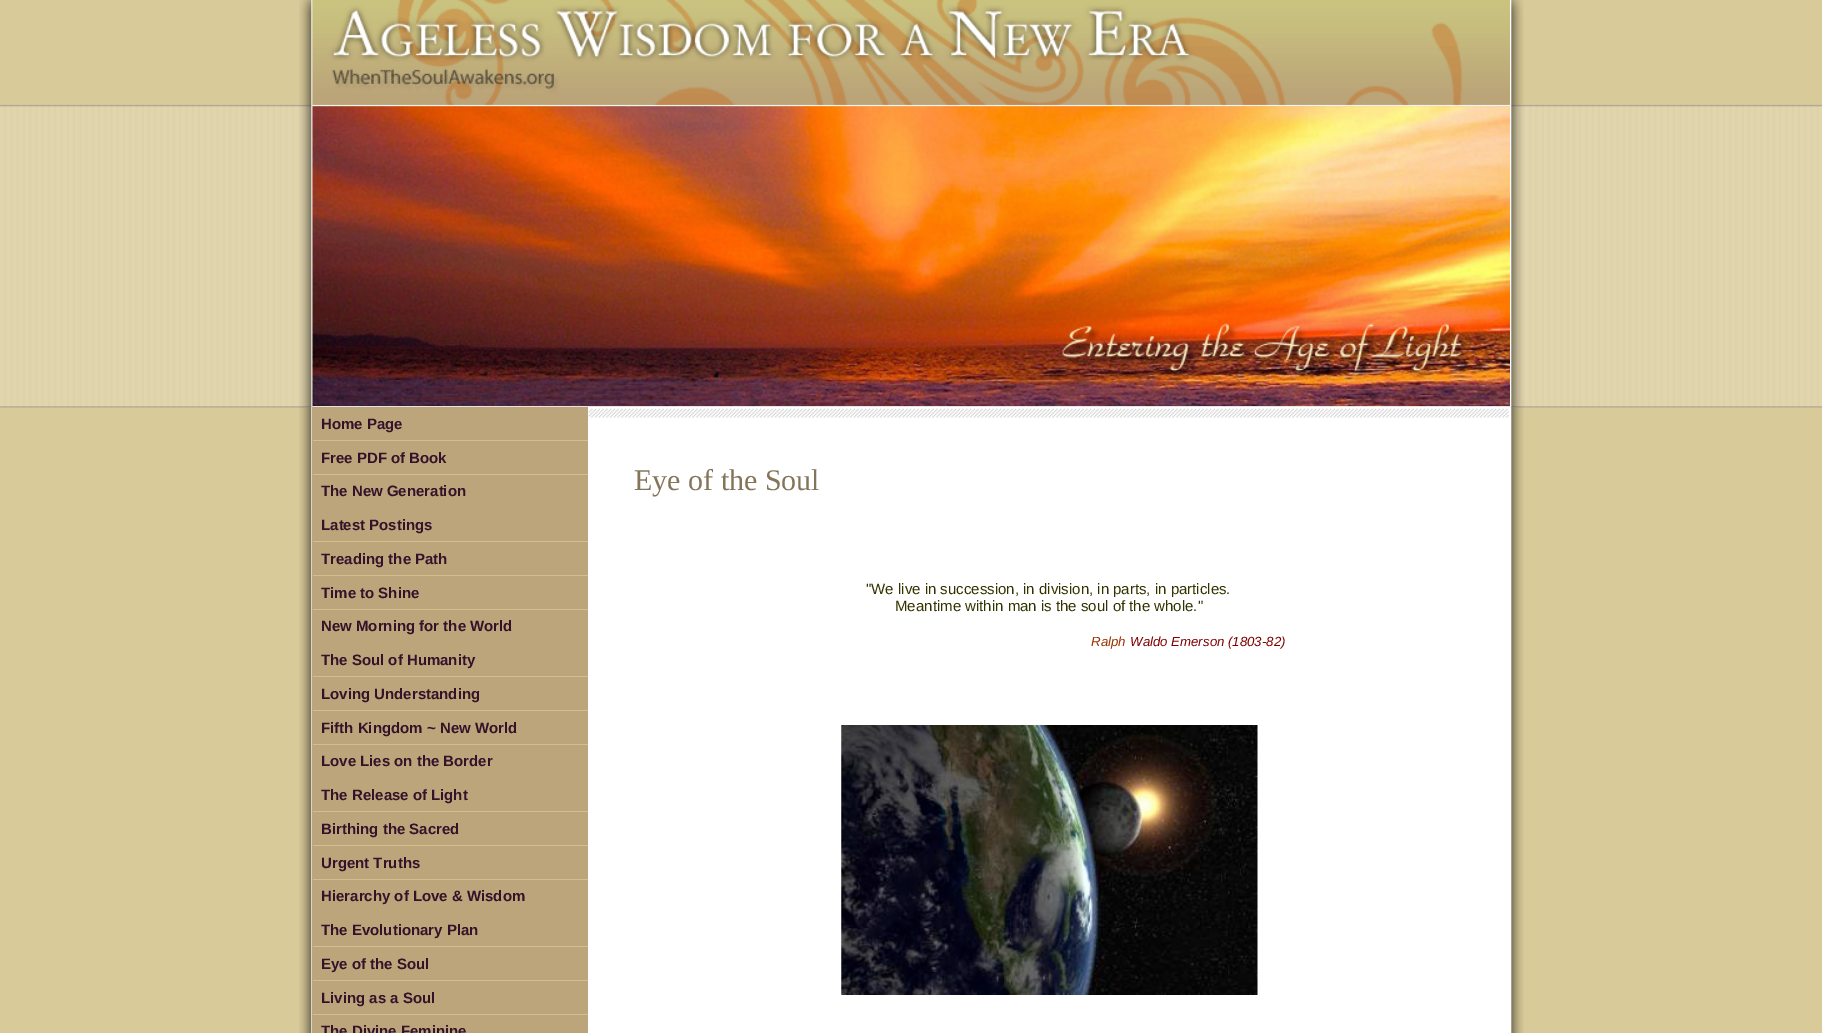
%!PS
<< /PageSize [1822 1033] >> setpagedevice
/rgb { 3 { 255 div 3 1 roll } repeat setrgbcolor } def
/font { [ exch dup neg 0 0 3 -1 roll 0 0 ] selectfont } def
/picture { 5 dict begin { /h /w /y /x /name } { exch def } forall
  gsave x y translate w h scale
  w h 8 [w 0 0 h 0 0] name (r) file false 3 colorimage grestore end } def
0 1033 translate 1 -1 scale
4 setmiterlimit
217 203 153 rgb
0 0 1822 1033 rectfill
(img/1.rgb) 0 104 1822 304 picture
(img/7.rgb) 299 407 13 626 picture
(img/2.rgb) 299 0 14 408 picture
(img/3.rgb) 312 0 1198 107 picture
(img/4.rgb) 312 106 1198 301 picture
255 255 255 rgb
588 407 922 626 rectfill
(img/5.rgb) 312 406 1198 2 picture
(img/10.rgb) 1510 407 14 626 picture
(img/6.rgb) 1510 0 14 408 picture
[
  [312 407 276 626 188 165 122]
  [313 440 275 1 208 192 144]
  [313 474 275 1 208 192 144]
  [313 541 275 1 208 192 144]
  [313 575 275 1 208 192 144]
  [313 609 275 1 208 192 144]
  [313 676 275 1 208 192 144]
  [313 710 275 1 208 192 144]
  [313 744 275 1 208 192 144]
  [313 811 275 1 208 192 144]
  [313 845 275 1 208 192 144]
  [313 879 275 1 208 192 144]
  [313 946 275 1 208 192 144]
  [313 980 275 1 208 192 144]
  [313 1014 275 1 208 192 144]
] { aload pop rgb rectfill } forall
(img/8.rgb) 588 408 921 10 picture
(img/9.rgb) 841 725 417 270 picture
/LiberationSans-Bold 15 font
51 19 41 rgb
[
  [(Home Page) 321 429]
  [(Free PDF of Book) 321 463]
  [(The New Generation) 321 496]
  [(Latest Postings) 321 530]
  [(Treading the Path) 321 564]
  [(Time to Shine) 321 598]
  [(New Morning for the World) 321 631]
  [(The Soul of Humanity) 321 665]
  [(Loving Understanding) 321 699]
  [(Fifth Kingdom ~ New World) 321 733]
  [(Love Lies on the Border) 321 766]
  [(The Release of Light) 321 800]
  [(Birthing the Sacred) 321 834]
  [(Urgent Truths) 321 868]
  [(Hierarchy of Love & Wisdom) 321 901]
  [(The Evolutionary Plan) 321 935]
  [(Eye of the Soul) 321 969]
  [(Living as a Soul) 321 1003]
  [(The Divine Feminine) 321 1036]
] { aload pop moveto show } forall
/LiberationSerif-Regular 30 font
132 117 90 rgb
634 490 moveto (Eye of the Soul) show
/LiberationSans-Regular 15 font
51 51 0 rgb
866 594 moveto ("We live in succession, in division, in parts, in particles.) show
895 611 moveto (Meantime within man is the soul of the whole.") show
/LiberationSans-Italic 13.25 font
153 51 0 rgb
1091 646 moveto (Ralph) show
128 0 0 rgb
1130 646 moveto (Waldo Emerson \(1803-82\)) show
showpage
